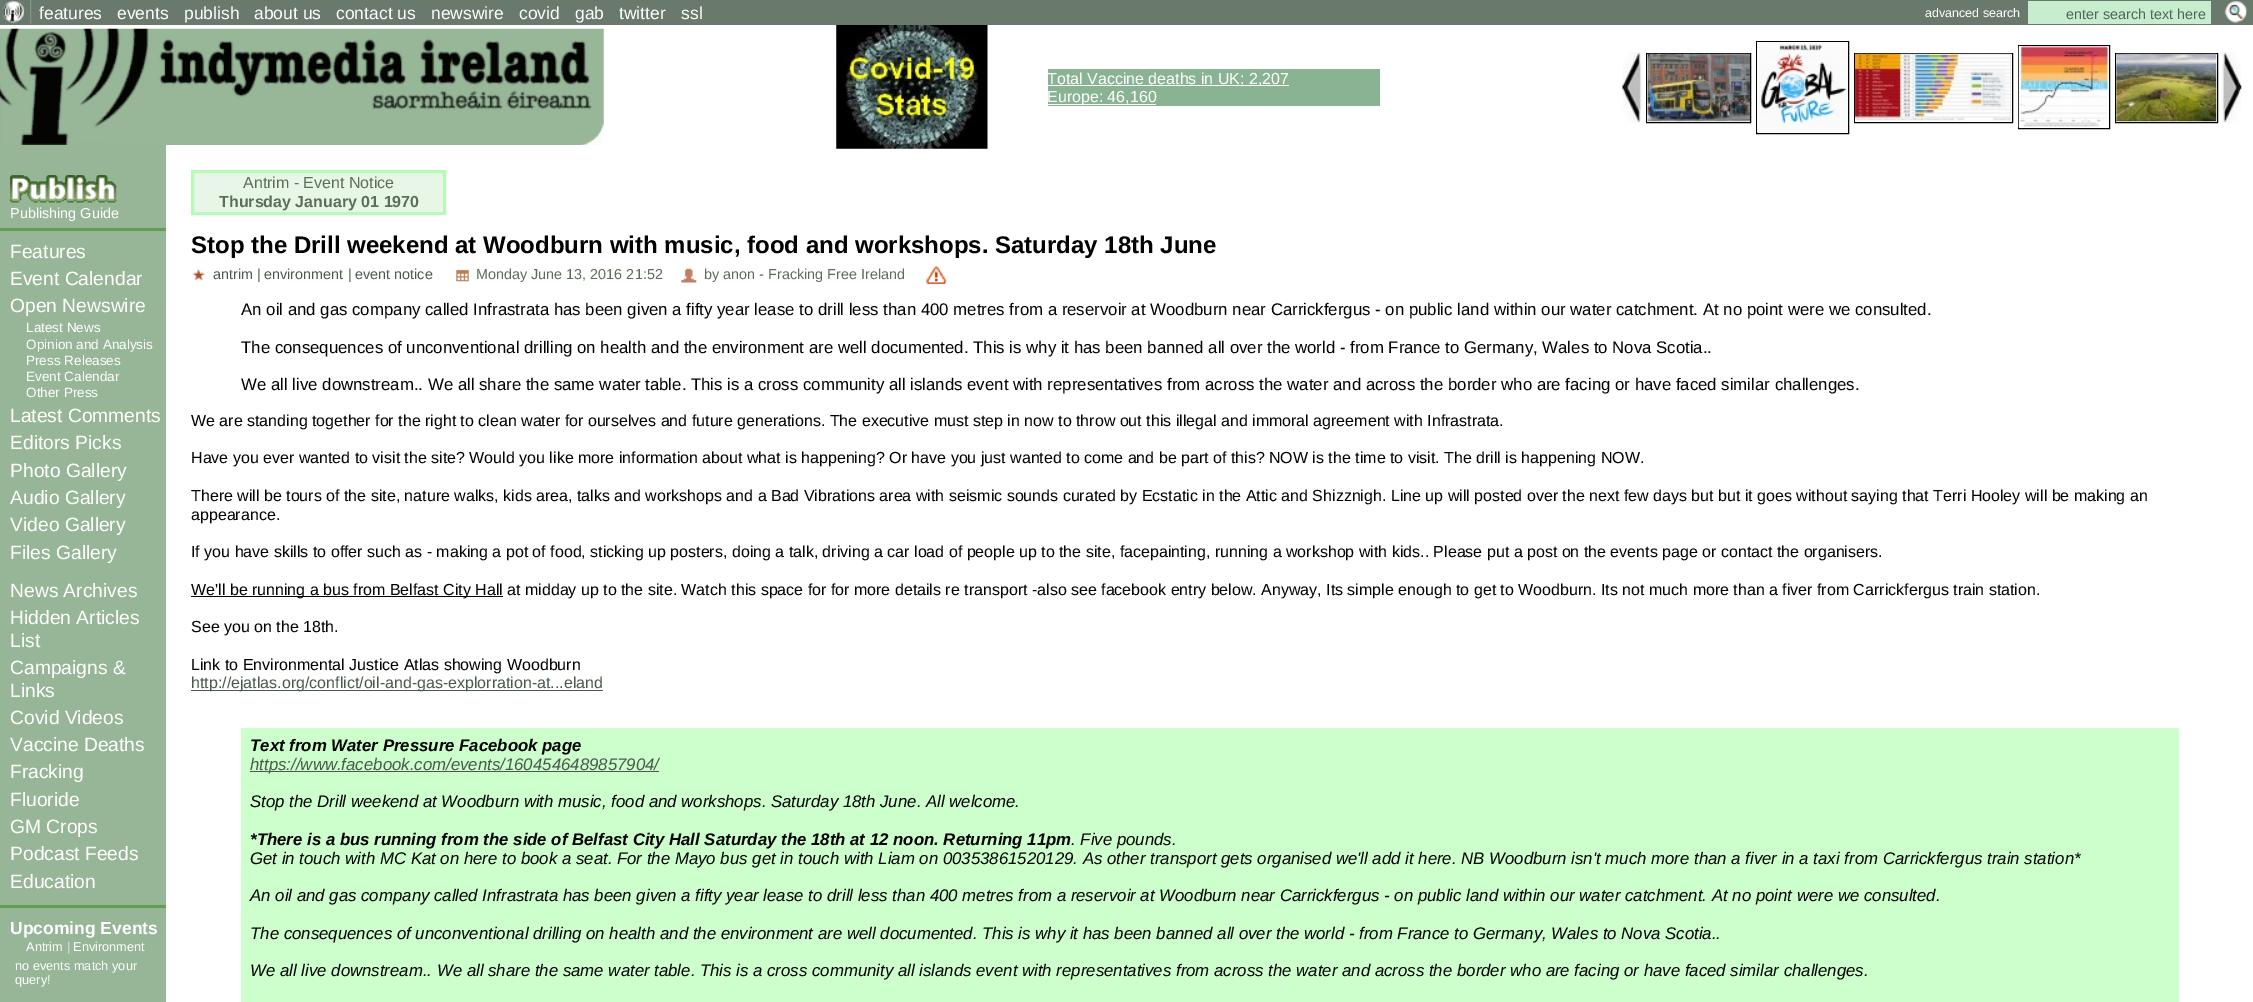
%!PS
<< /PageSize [2253 1002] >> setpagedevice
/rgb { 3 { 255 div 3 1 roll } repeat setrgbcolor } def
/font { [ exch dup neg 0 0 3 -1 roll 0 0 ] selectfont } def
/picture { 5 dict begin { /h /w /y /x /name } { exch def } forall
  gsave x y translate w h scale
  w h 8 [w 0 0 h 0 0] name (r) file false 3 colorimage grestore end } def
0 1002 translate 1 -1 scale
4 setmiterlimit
255 255 255 rgb
0 0 2253 1002 rectfill
105 121 108 rgb
0 0 2253 25 rectfill
(img/1.rgb) 2 0 30 24 picture
200 237 206 rgb
2028 1 183 23 rectfill
(img/2.rgb) 2224 0 23 24 picture
(img/3.rgb) 0 28 604 117 picture
(img/4.rgb) 836 25 152 124 picture
[
  [1048 69 332 37 137 179 146]
  [1048 85 241 1 255 255 255]
  [1048 104 108 1 255 255 255]
] { aload pop rgb rectfill } forall
(img/5.rgb) 1622 52 20 71 picture
0 0 0 rgb
1646.5 53.5 104 69 rectstroke
(img/6.rgb) 1647 53 103 69 picture
1756.5 41.5 92 92 rectstroke
(img/7.rgb) 1757 42 91 90 picture
1854.5 53.5 158 69 rectstroke
(img/8.rgb) 1855 53 157 69 picture
2018.5 45.5 91 83 rectstroke
(img/9.rgb) 2018 46 91 82 picture
2115.5 53.5 102 69 rectstroke
(img/10.rgb) 2116 53 101 69 picture
(img/11.rgb) 2222 52 20 71 picture
151 182 151 rgb
0 145 166 857 rectfill
97 157 85 rgb
0 228 166 3 rectfill
(img/12.rgb) 10 175 107 28 picture
0 905 166 3 rectfill
232 246 232 rgb
192.5 171.5 moveto 444.5 171.5 lineto 444.5 213.5 lineto 192.5 213.5 lineto closepath gsave fill grestore
184 248 184 rgb
3 setlinewidth
stroke
(img/13.rgb) 192 268 13 13 picture
(img/14.rgb) 456 269 13 13 picture
(img/15.rgb) 681 268 16 15 picture
(img/16.rgb) 926 266 21 18 picture
[
  [191 596 312 1 0 0 0]
  [191 690 412 1 73 89 76]
  [241 728 1938 274 204 255 204]
  [250 771 409 1 73 89 76]
] { aload pop rgb rectfill } forall
/LiberationSans-Regular 17.5 font
255 255 255 rgb
[
  [(features) 39 19]
  [(events) 117 19]
  [(publish) 184 19]
  [(about us) 254 19]
  [(contact us) 336 19]
  [(newswire) 431 19]
  [(covid) 519 19]
  [(gab) 575 19]
  [(twitter) 619 19]
  [(ssl) 681 19]
] { aload pop moveto show } forall
/LiberationSans-Regular 12.5 font
1925 17 moveto (advanced search) show
/LiberationSans-Regular 14.4 font
75 103 91 rgb
2066 19 moveto (enter search text here) show
/LiberationSans-Regular 16 font
255 255 255 rgb
1047 84 moveto (Total Vaccine deaths in UK: 2,207) show
1047 102 moveto (Europe: 46,160) show
/LiberationSans-Regular 14.4 font
10 218 moveto (Publishing Guide) show
/LiberationSans-Regular 19.25 font
[
  [(Features) 10 258]
  [(Event Calendar) 10 285]
  [(Open Newswire) 10 312]
] { aload pop moveto show } forall
/LiberationSans-Regular 13.5 font
[
  [(Latest News) 26 332]
  [(Opinion and Analysis) 26 349]
  [(Press Releases) 26 365]
  [(Event Calendar) 26 381]
  [(Other Press) 26 397]
] { aload pop moveto show } forall
/LiberationSans-Regular 19.25 font
[
  [(Latest Comments) 10 422]
  [(Editors Picks) 10 449]
  [(Photo Gallery) 10 477]
  [(Audio Gallery) 10 504]
  [(Video Gallery) 10 531]
  [(Files Gallery) 10 559]
  [(News Archives) 10 597]
  [(Hidden Articles) 10 624]
  [(List) 10 647]
  [(Campaigns &) 10 674]
  [(Links) 10 697]
  [(Covid Videos) 10 724]
  [(Vaccine Deaths) 10 751]
  [(Fracking) 10 778]
  [(Fluoride) 10 806]
  [(GM Crops) 10 833]
  [(Podcast Feeds) 10 860]
  [(Education) 10 888]
] { aload pop moveto show } forall
/LiberationSans-Bold 17.5 font
10 934 moveto (Upcoming Events) show
/LiberationSans-Regular 12.75 font
26 951 moveto (Antrim) show
216 230 230 rgb
67 951 moveto (|) show
255 255 255 rgb
[
  [(Environment) 73 951]
  [(no events match your) 15 970]
  [(query!) 15 984]
] { aload pop moveto show } forall
/LiberationSans-Regular 16 font
92 110 88 rgb
243 188 moveto (Antrim - Event Notice) show
/LiberationSans-Bold 16 font
219 207 moveto (Thursday January 01 1970) show
/LiberationSans-Bold 24 font
0 0 0 rgb
191 253 moveto (Stop the Drill weekend at Woodburn with music, food and workshops. Saturday 18th June) show
/LiberationSans-Regular 14.4 font
73 89 76 rgb
213 279 moveto (antrim) show
92 110 88 rgb
257 279 moveto (|) show
73 89 76 rgb
264 279 moveto (environment) show
92 110 88 rgb
348 279 moveto (|) show
73 89 76 rgb
355 279 moveto (event notice) show
92 110 88 rgb
476 279 moveto (Monday June 13, 2016 21:52) show
704 279 moveto (by anon - Fracking Free Ireland) show
/LiberationSans-Regular 16.8 font
0 0 0 rgb
[
  [(An oil and gas company called Infrastrata has been given a fifty year lease to drill less than 400 metres from a reservoir at Woodburn near Carrickfergus - on public land within our water catchment. At no point were we consulted.) 241 315]
  [(The consequences of unconventional drilling on health and the environment are well documented. This is why it has been banned all over the world - from France to Germany, Wales to Nova Scotia..) 241 353]
  [(We all live downstream.. We all share the same water table. This is a cross community all islands event with representatives from across the water and across the border who are facing or have faced similar challenges.) 241 390]
] { aload pop moveto show } forall
/LiberationSans-Regular 16 font
[
  [(We are standing together for the right to clean water for ourselves and future generations. The executive must step in now to throw out this illegal and immoral agreement with Infrastrata.) 191 426]
  [(Have you ever wanted to visit the site? Would you like more information about what is happening? Or have you just wanted to come and be part of this? NOW is the time to visit. The drill is happening NOW.) 191 463]
  [(There will be tours of the site, nature walks, kids area, talks and workshops and a Bad Vibrations area with seismic sounds curated by Ecstatic in the Attic and Shizznigh. Line up will posted over the next few days but but it goes without saying that Terri Hooley will be making an) 191 501]
  [(appearance.) 191 520]
  [(If you have skills to offer such as - making a pot of food, sticking up posters, doing a talk, driving a car load of people up to the site, facepainting, running a workshop with kids.. Please put a post on the events page or contact the organisers.) 191 557]
  [(We'll be running a bus from Belfast City Hall at midday up to the site. Watch this space for for more details re transport -also see facebook entry below. Anyway, Its simple enough to get to Woodburn. Its not much more than a fiver from Carrickfergus train station.) 191 595]
  [(See you on the 18th.) 191 632]
  [(Link to Environmental Justice Atlas showing Woodburn) 191 670]
] { aload pop moveto show } forall
73 89 76 rgb
191 688 moveto (http://ejatlas.org/conflict/oil-and-gas-explorration-at...eland) show
/LiberationSans-BoldItalic 16.8 font
0 0 0 rgb
250 751 moveto (Text from Water Pressure Facebook page) show
/LiberationSans-Italic 16.8 font
73 89 76 rgb
250 770 moveto (https://www.facebook.com/events/1604546489857904/) show
0 0 0 rgb
250 807 moveto (Stop the Drill weekend at Woodburn with music, food and workshops. Saturday 18th June. All welcome.) show
/LiberationSans-BoldItalic 16.8 font
250 845 moveto (*There is a bus running from the side of Belfast City Hall Saturday the 18th at 12 noon. Returning 11pm) show
/LiberationSans-Italic 16.8 font
[
  [(. Five pounds.) 1071 845]
  [(Get in touch with MC Kat on here to book a seat. For the Mayo bus get in touch with Liam on 00353861520129. As other transport gets organised we'll add it here. NB Woodburn isn't much more than a fiver in a taxi from Carrickfergus train station*) 250 864]
  [(An oil and gas company called Infrastrata has been given a fifty year lease to drill less than 400 metres from a reservoir at Woodburn near Carrickfergus - on public land within our water catchment. At no point were we consulted.) 250 901]
  [(The consequences of unconventional drilling on health and the environment are well documented. This is why it has been banned all over the world - from France to Germany, Wales to Nova Scotia..) 250 939]
  [(We all live downstream.. We all share the same water table. This is a cross community all islands event with representatives from across the water and across the border who are facing or have faced similar challenges.) 250 976]
] { aload pop moveto show } forall
showpage
